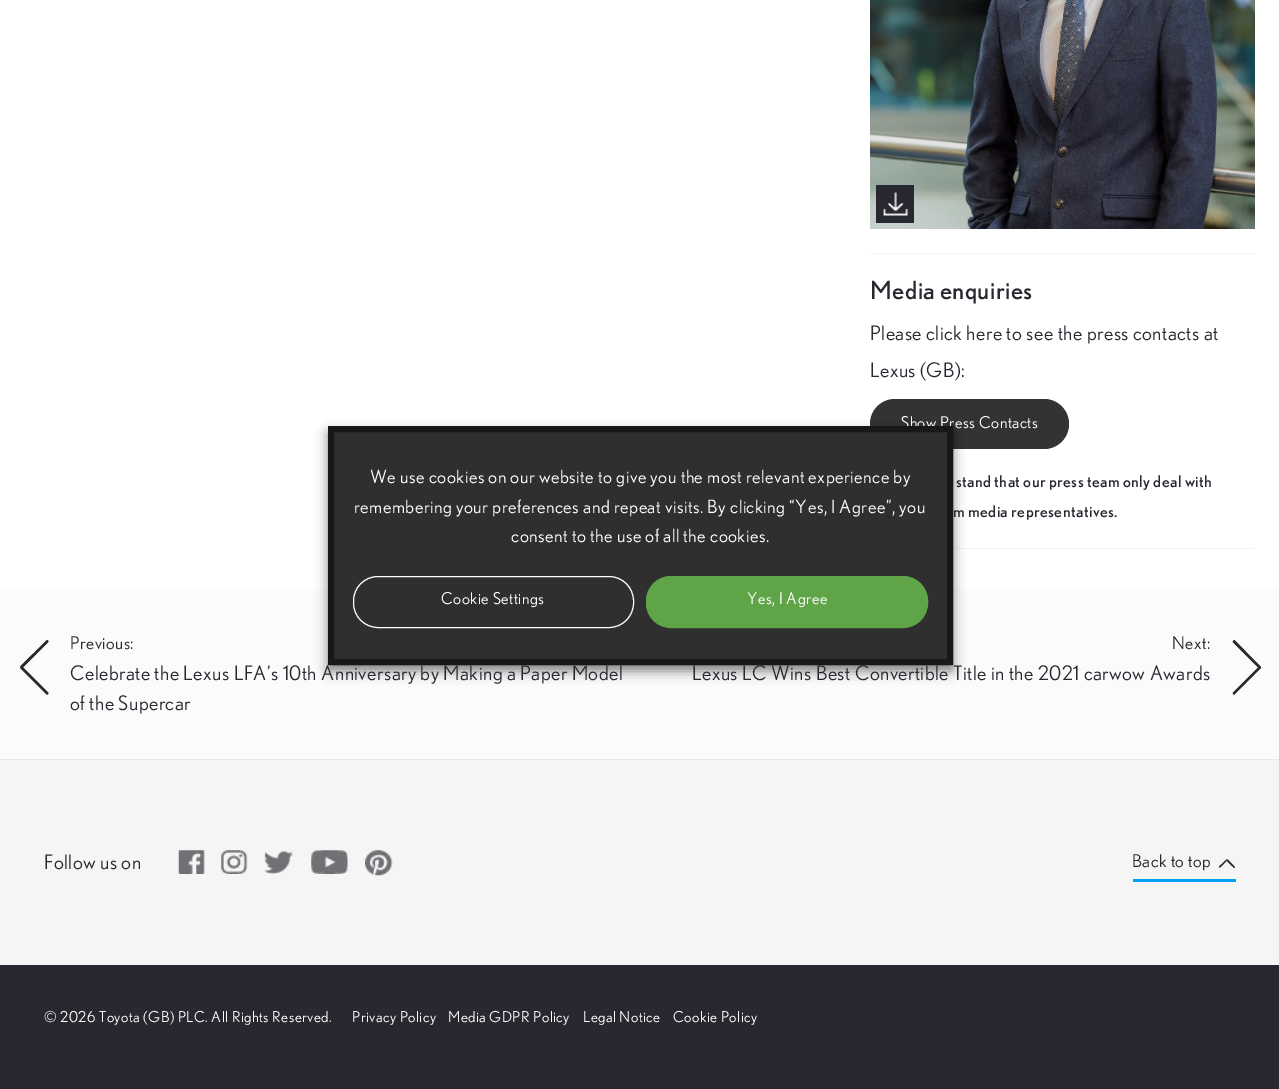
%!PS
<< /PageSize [1279 1089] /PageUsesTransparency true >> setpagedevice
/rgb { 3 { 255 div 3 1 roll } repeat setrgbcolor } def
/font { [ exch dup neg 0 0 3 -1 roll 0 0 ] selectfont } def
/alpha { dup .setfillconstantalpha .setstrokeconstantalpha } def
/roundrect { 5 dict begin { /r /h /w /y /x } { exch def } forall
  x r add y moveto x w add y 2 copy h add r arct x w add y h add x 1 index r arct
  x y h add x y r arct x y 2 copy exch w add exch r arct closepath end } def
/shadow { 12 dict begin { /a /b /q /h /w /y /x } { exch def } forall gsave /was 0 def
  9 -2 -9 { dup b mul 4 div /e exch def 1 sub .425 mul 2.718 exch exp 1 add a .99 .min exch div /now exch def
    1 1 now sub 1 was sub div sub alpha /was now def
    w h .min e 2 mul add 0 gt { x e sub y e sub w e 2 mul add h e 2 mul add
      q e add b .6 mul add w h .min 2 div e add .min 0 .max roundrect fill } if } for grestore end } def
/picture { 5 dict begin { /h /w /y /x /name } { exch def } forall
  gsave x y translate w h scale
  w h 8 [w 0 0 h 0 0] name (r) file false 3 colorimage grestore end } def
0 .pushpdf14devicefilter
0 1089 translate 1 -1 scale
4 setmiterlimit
255 255 255 rgb
0 0 1279 1089 rectfill
244 244 244 rgb
870 253 385 1 rectfill
(img/1.rgb) 870 0 385 229 picture
40 40 48 rgb
876 185 38 38 rectfill
(img/2.rgb) 883 192 25 24 picture
244 244 244 rgb
953 548 302 1 rectfill
51 51 51 rgb
870 399 199 50 25 roundrect fill
251 251 251 rgb
0 589 1279 170 rectfill
233 233 234 rgb
0 759 1279 1 rectfill
40 40 48 rgb
20.5 666 moveto 23.5 663.5 46 640.5 47 640 curveto 48 640 48.5 641 48.5 642 curveto 22.5 668 lineto 21.5 669 19.5 667.5 20.5 666 curveto closepath fill
22.5 667 moveto 25 669.5 48 692 48.5 693 curveto 48.5 694 47.5 695 46.5 694.5 curveto 20.5 668.5 lineto 19.5 667.5 21.5 665.5 22.5 667 curveto closepath fill
1235 640.5 moveto 1237.5 643.5 1260.5 666 1261 667 curveto 1261 668 1260 668.5 1259 668.5 curveto 1233 642.5 lineto 1232 641 1234 639.5 1235 640.5 curveto closepath fill
1233 692.5 moveto 1236 690 1258.5 666.5 1259.5 666.5 curveto 1260.5 666.5 1261 667.5 1261 668 curveto 1235 694 lineto 1234 695.5 1232 693.5 1233 692.5 curveto closepath fill
245 245 245 rgb
0 760 1279 205 rectfill
(img/3.rgb) 178 850 27 24 picture
(img/4.rgb) 221 850 27 24 picture
(img/5.rgb) 264 851 30 23 picture
(img/6.rgb) 311 850 37 24 picture
(img/7.rgb) 365 850 28 26 picture
40 40 48 rgb
1219 866.5 moveto 1220 866 1226 859.5 1227 859.5 curveto 1228 859.5 1226.5 861 1226 861.5 curveto 1225 862.5 1220 868.5 1219 867.5 curveto 1219 867.5 1219 867 1219 866.5 curveto closepath fill
1227.5 859.5 moveto 1228.5 860.5 1235 866.5 1235 867.5 curveto 1234.5 868.5 1233.5 867 1232.5 866.5 curveto 1231.5 865.5 1226 860.5 1226.5 860 curveto 1227 859.5 1227.5 859.5 1227.5 859.5 curveto closepath fill
0 160 240 rgb
1133 879 103 3 rectfill
40 40 48 rgb
0 965 1279 124 rectfill
0 0 0 rgb
328 433 625 238 0 6 0.5 shadow
/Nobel-Regular 25 font
40 40 48 rgb
870 299 moveto 0.45 0 (Media enquiries) ashow
/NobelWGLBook-Regular 20 font
870 340 moveto 0.45 0 (Please click here to see the press contacts at) ashow
870 377 moveto 0.45 0 (Lexus \(GB\):) ashow
/NobelWGLBook-Regular 16.25 font
255 255 255 rgb
901 428 moveto 0.45 0 (Show Press Contacts) ashow
/Nobel-Regular 16 font
40 40 48 rgb
956 487 moveto 0.45 0 (stand that our press team only deal with) ashow
953 517 moveto 0.45 0 (m media representatives.) ashow
/NobelWGLBook-Regular 17.5 font
70 649 moveto 0.45 0 (Previous:) ashow
/NobelWGLBook-Regular 20 font
70 680 moveto 0.45 0 (Celebrate the Lexus LFA’s 10th Anniversary by Making a Paper Model) ashow
70 710 moveto 0.45 0 (of the Supercar) ashow
/NobelWGLBook-Regular 17.5 font
1172 649 moveto 0.45 0 (Next:) ashow
/NobelWGLBook-Regular 20 font
692 680 moveto 0.45 0 (Lexus LC Wins Best Convertible Title in the 2021 carwow Awards) ashow
44 869 moveto 0.45 0 (Follow us on) ashow
/NobelWGLBook-Regular 17.5 font
1132 867 moveto 0.45 0 (Back to top) ashow
/NobelWGLBook-Regular 15 font
255 255 255 rgb
44 1022 moveto 0.45 0 (© 2026 Toyota \(GB\) PLC. All Rights Reserved.) ashow
352 1022 moveto 0.45 0 (Privacy Policy) ashow
448 1022 moveto 0.45 0 (Media GDPR Policy) ashow
583 1022 moveto 0.45 0 (Legal Notice) ashow
673 1022 moveto 0.45 0 (Cookie Policy) ashow
47 47 47 rgb
331 429 moveto 950 429 lineto 950 662 lineto 331 662 lineto closepath gsave fill grestore
24 24 24 rgb
6 setlinewidth
stroke
/NobelWGLBook-Regular 18.3 font
255 255 255 rgb
370 483 moveto 0.45 0 (We use cookies on our website to give you the most relevant experience by) ashow
354 513 moveto 0.45 0 (remembering your preferences and repeat visits. By clicking “Yes, I Agree”, you) ashow
511 542 moveto 0.45 0 (consent to the use of all the cookies.) ashow
1 setlinewidth
353.5 576.5 280 51 24.5 roundrect stroke
/NobelWGLBook-Regular 16.25 font
441 604 moveto 0.45 0 (Cookie Settings) ashow
95 164 70 rgb
646.5 576.5 281 51 24.5 roundrect gsave fill grestore
stroke
255 255 255 rgb
747 604 moveto 0.45 0 (Yes, I Agree) ashow
.poppdf14devicefilter showpage
